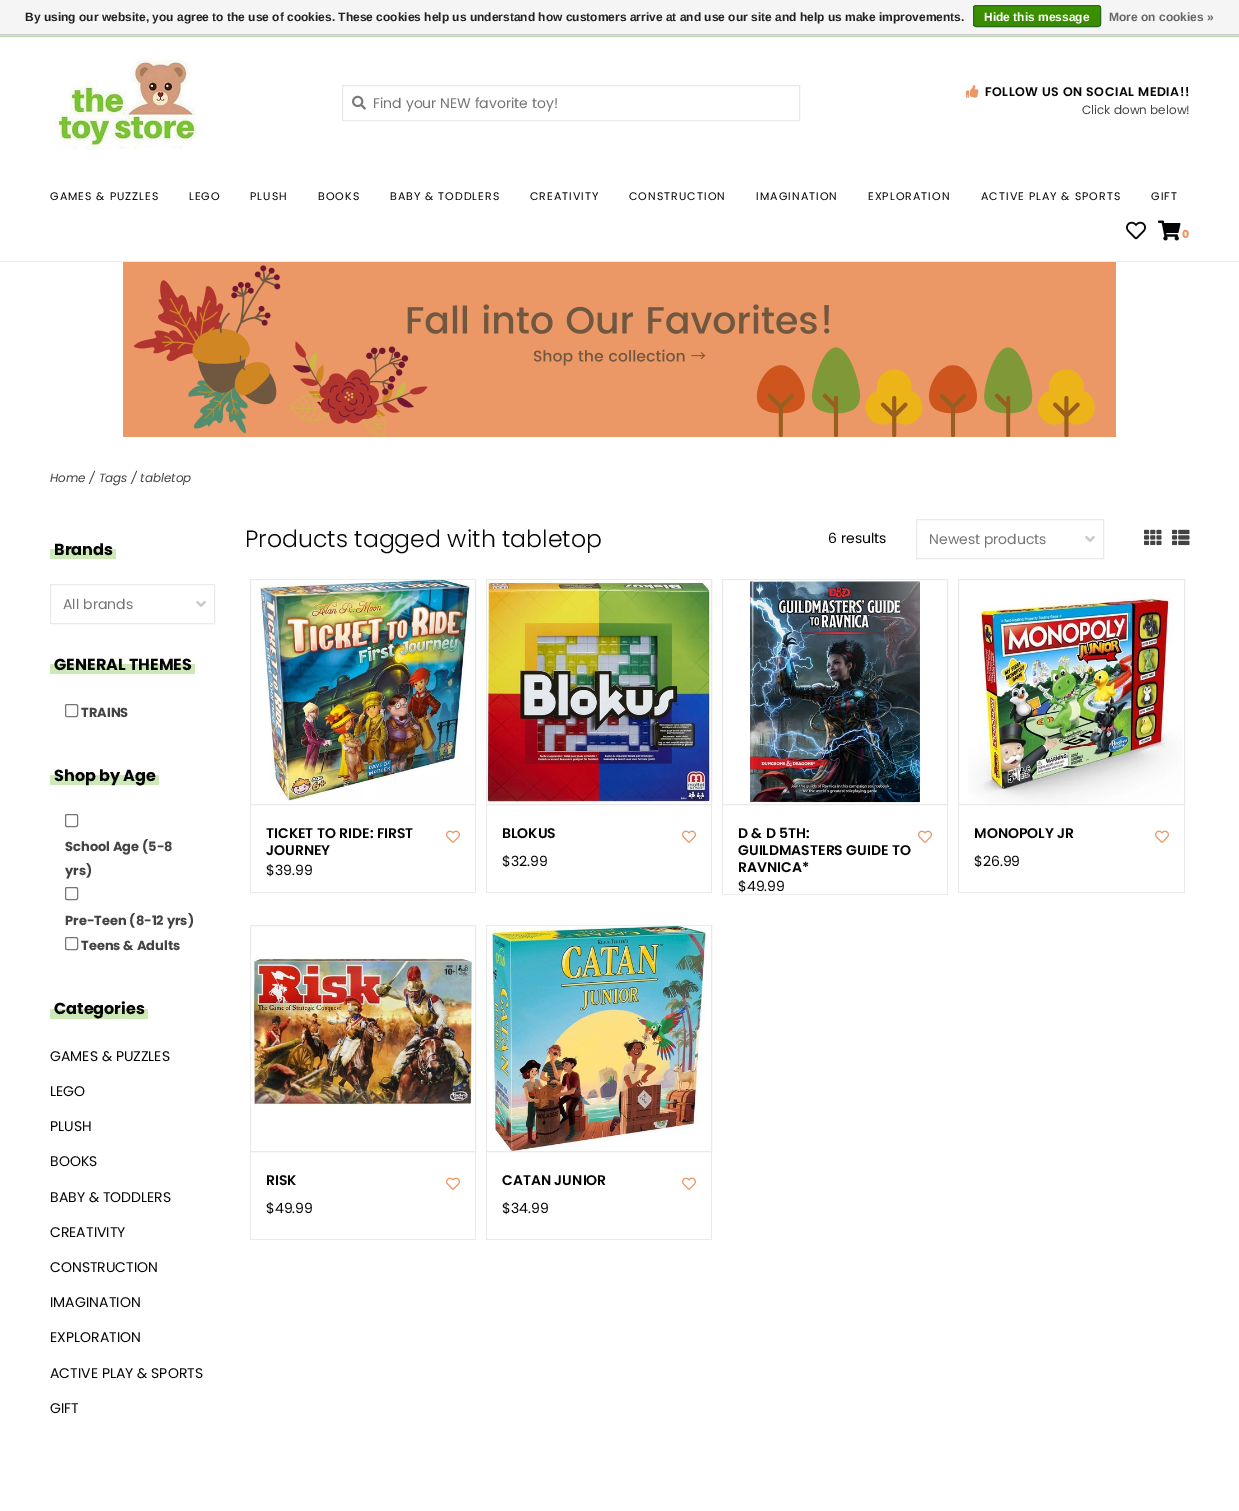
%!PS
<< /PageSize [1239 1511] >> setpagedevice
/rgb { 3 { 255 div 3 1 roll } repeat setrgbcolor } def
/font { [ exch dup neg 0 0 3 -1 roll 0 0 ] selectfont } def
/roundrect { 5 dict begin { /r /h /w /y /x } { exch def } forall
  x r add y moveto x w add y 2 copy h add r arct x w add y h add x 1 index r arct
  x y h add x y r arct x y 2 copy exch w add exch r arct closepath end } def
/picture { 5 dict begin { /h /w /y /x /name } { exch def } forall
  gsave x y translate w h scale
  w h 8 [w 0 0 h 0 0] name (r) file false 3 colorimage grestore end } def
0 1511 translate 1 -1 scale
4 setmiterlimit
255 255 255 rgb
0 0 1239 1511 rectfill
245 245 245 rgb
0 0 1239 34 rectfill
204 204 204 rgb
0 34 1239 1 rectfill
gsave
973 5 128 22 3 roundrect clip newpath
gsave 973 6 moveto 1101 6 lineto 1101 26 lineto 973 26 lineto closepath clip newpath
<< /ShadingType 2 /ColorSpace /DeviceRGB /Coords [1037 6 1037 26] /Extend [true true] /Function << /FunctionType 2 /Domain [0 1] /C0 [0.235 0.576 0] /C1 [0.224 0.541 0] /N 1 >> >> shfill grestore
grestore
41 105 29 rgb
973.5 5.5 127 21 2.5 roundrect stroke
[
  [0 261 1239 1 234 234 234]
  [0 35 1239 1 204 233 183]
  [0 36 1239 1 189 216 170]
] { aload pop rgb rectfill } forall
(img/1.rgb) 54 56 147 94 picture
234 234 234 rgb
342.5 85.5 457 35 rectstroke
(img/2.rgb) 352 95 14 15 picture
(img/3.rgb) 966 85 13 13 picture
(img/4.rgb) 1126 221 20 19 picture
(img/5.rgb) 1158 220 23 21 picture
(img/6.rgb) 123 262 993 175 picture
204 233 183 rgb
50 549 66 10 rectfill
(img/7.rgb) 196 600 10 7 picture
234 234 234 rgb
50.5 584.5 164 39 rectstroke
204 233 183 rgb
50 664 145 10 rectfill
118 118 118 rgb
65.5 704.5 12 12 1.5 roundrect stroke
204 233 183 rgb
50 775 109 10 rectfill
118 118 118 rgb
65.5 814.5 12 12 1.5 roundrect stroke
65.5 887.5 12 12 1.5 roundrect stroke
65.5 937.5 12 12 1.5 roundrect stroke
204 233 183 rgb
50 1009 98 10 rectfill
(img/7.rgb) 1085 535 10 7 picture
234 234 234 rgb
916.5 519.5 187 39 rectstroke
(img/8.rgb) 1144 529 18 17 picture
(img/9.rgb) 1172 529 18 17 picture
250.5 579.5 225 225 rectstroke
(img/10.rgb) 260 580 215 224 picture
[
  [475 805 1 88 234 234 234]
  [250 892 226 1 234 234 234]
  [250 805 1 88 234 234 234]
] { aload pop rgb rectfill } forall
(img/11.rgb) 446 830 14 13 picture
486.5 579.5 225 225 rectstroke
(img/12.rgb) 487 580 224 224 picture
[
  [711 805 1 88 234 234 234]
  [486 892 226 1 234 234 234]
  [486 805 1 88 234 234 234]
] { aload pop rgb rectfill } forall
(img/11.rgb) 682 830 14 13 picture
722.5 579.5 225 225 rectstroke
(img/13.rgb) 749 580 172 224 picture
[
  [947 805 1 90 234 234 234]
  [722 894 226 1 234 234 234]
  [722 805 1 90 234 234 234]
] { aload pop rgb rectfill } forall
(img/11.rgb) 918 830 14 13 picture
958.5 579.5 226 225 rectstroke
(img/14.rgb) 968 598 214 206 picture
[
  [1184 805 1 88 234 234 234]
  [958 892 227 1 234 234 234]
  [958 805 1 88 234 234 234]
] { aload pop rgb rectfill } forall
(img/11.rgb) 1155 830 14 13 picture
250.5 925.5 225 226 rectstroke
(img/15.rgb) 251 954 224 152 picture
[
  [475 1152 1 88 234 234 234]
  [250 1239 226 1 234 234 234]
  [250 1152 1 88 234 234 234]
] { aload pop rgb rectfill } forall
(img/11.rgb) 446 1177 14 13 picture
486.5 925.5 225 226 rectstroke
(img/16.rgb) 487 926 224 225 picture
[
  [711 1152 1 88 234 234 234]
  [486 1239 226 1 234 234 234]
  [486 1152 1 88 234 234 234]
] { aload pop rgb rectfill } forall
(img/11.rgb) 682 1177 14 13 picture
/LiberationSans-Bold 12 font
34 34 34 rgb
25 21 moveto (By using our website, you agree to the use of cookies. These cookies help us understand how customers arrive at and use our site and help us make improvements.) show
255 255 255 rgb
984 21 moveto (Hide this message) show
102 102 102 rgb
1109 21 moveto (More on cookies ») show
/Poppins-Regular 14 font
117 117 117 rgb
373 108 moveto (Find your NEW favorite toy!) show
/Poppins-SemiBold 12.5 font
5 5 6 rgb
985 96 moveto 0.5 0 (FOLLOW US ON SOCIAL MEDIA!!) ashow
/Poppins-Regular 12 font
67 67 68 rgb
1082 114 moveto (Click down below!) show
/Poppins-Regular 11 font
5 5 6 rgb
50 200 moveto 1 0 (GAMES & PUZZLES) ashow
189 200 moveto 1 0 (LEGO) ashow
250 200 moveto 1 0 (PLUSH) ashow
318 200 moveto 1 0 (BOOKS) ashow
390 200 moveto 1 0 (BABY & TODDLERS) ashow
530 200 moveto 1 0 (CREATIVITY) ashow
629 200 moveto 1 0 (CONSTRUCTION) ashow
756 200 moveto 1 0 (IMAGINATION) ashow
868 200 moveto 1 0 (EXPLORATION) ashow
981 200 moveto 1 0 (ACTIVE PLAY & SPORTS) ashow
1151 200 moveto 1 0 (GIFT) ashow
/Poppins-ExtraBold 11 font
236 151 102 rgb
1182 238 moveto (0) show
/Poppins-Italic 12 font
67 67 68 rgb
50 482 moveto (Home / Tags / tabletop) show
/Poppins-Bold 16 font
5 5 6 rgb
54 555 moveto (Brands) show
/Poppins-Regular 14 font
117 117 117 rgb
63 609 moveto (All brands) show
/Poppins-Bold 16 font
5 5 6 rgb
54 670 moveto (GENERAL THEMES) show
/Poppins-Bold 13 font
67 67 68 rgb
81 717 moveto (TRAINS) show
/Poppins-Bold 16 font
5 5 6 rgb
54 781 moveto (Shop by Age) show
/Poppins-Bold 13 font
67 67 68 rgb
[
  [(School Age \(5-8) 65 851]
  [(yrs\)) 65 875]
  [(Pre-Teen \(8-12 yrs\)) 65 925]
  [(Teens & Adults) 81 950]
] { aload pop moveto show } forall
/Poppins-Bold 16 font
5 5 6 rgb
54 1014 moveto (Categories) show
/Poppins-Regular 14 font
[
  [(GAMES & PUZZLES) 50 1061]
  [(LEGO) 50 1096]
  [(PLUSH) 50 1131]
  [(BOOKS) 50 1166]
  [(BABY & TODDLERS) 50 1202]
  [(CREATIVITY) 50 1237]
  [(CONSTRUCTION) 50 1272]
  [(IMAGINATION) 50 1307]
  [(EXPLORATION) 50 1342]
  [(ACTIVE PLAY & SPORTS) 50 1378]
  [(GIFT) 50 1413]
] { aload pop moveto show } forall
/Poppins-Light 23.6 font
245 547 moveto (Products tagged with tabletop) show
/Poppins-Regular 14 font
828 543 moveto (6 results) show
117 117 117 rgb
929 544 moveto (Newest products) show
/Poppins-SemiBold 14 font
5 5 6 rgb
266 838 moveto (TICKET TO RIDE: FIRST) show
266 855 moveto (JOURNEY) show
/Poppins-Regular 14 font
266 875 moveto ($39.99) show
/Poppins-SemiBold 14 font
502 838 moveto (BLOKUS) show
/Poppins-Regular 14 font
502 866 moveto ($32.99) show
/Poppins-SemiBold 14 font
[
  [(D & D 5TH:) 738 838]
  [(GUILDMASTERS GUIDE TO) 738 855]
  [(RAVNICA*) 738 872]
] { aload pop moveto show } forall
/Poppins-Regular 14 font
738 891 moveto ($49.99) show
/Poppins-SemiBold 14 font
974 838 moveto (MONOPOLY JR) show
/Poppins-Regular 14 font
974 866 moveto ($26.99) show
/Poppins-SemiBold 14 font
266 1185 moveto (RISK) show
/Poppins-Regular 14 font
266 1213 moveto ($49.99) show
/Poppins-SemiBold 14 font
502 1185 moveto (CATAN JUNIOR) show
/Poppins-Regular 14 font
502 1213 moveto ($34.99) show
showpage
